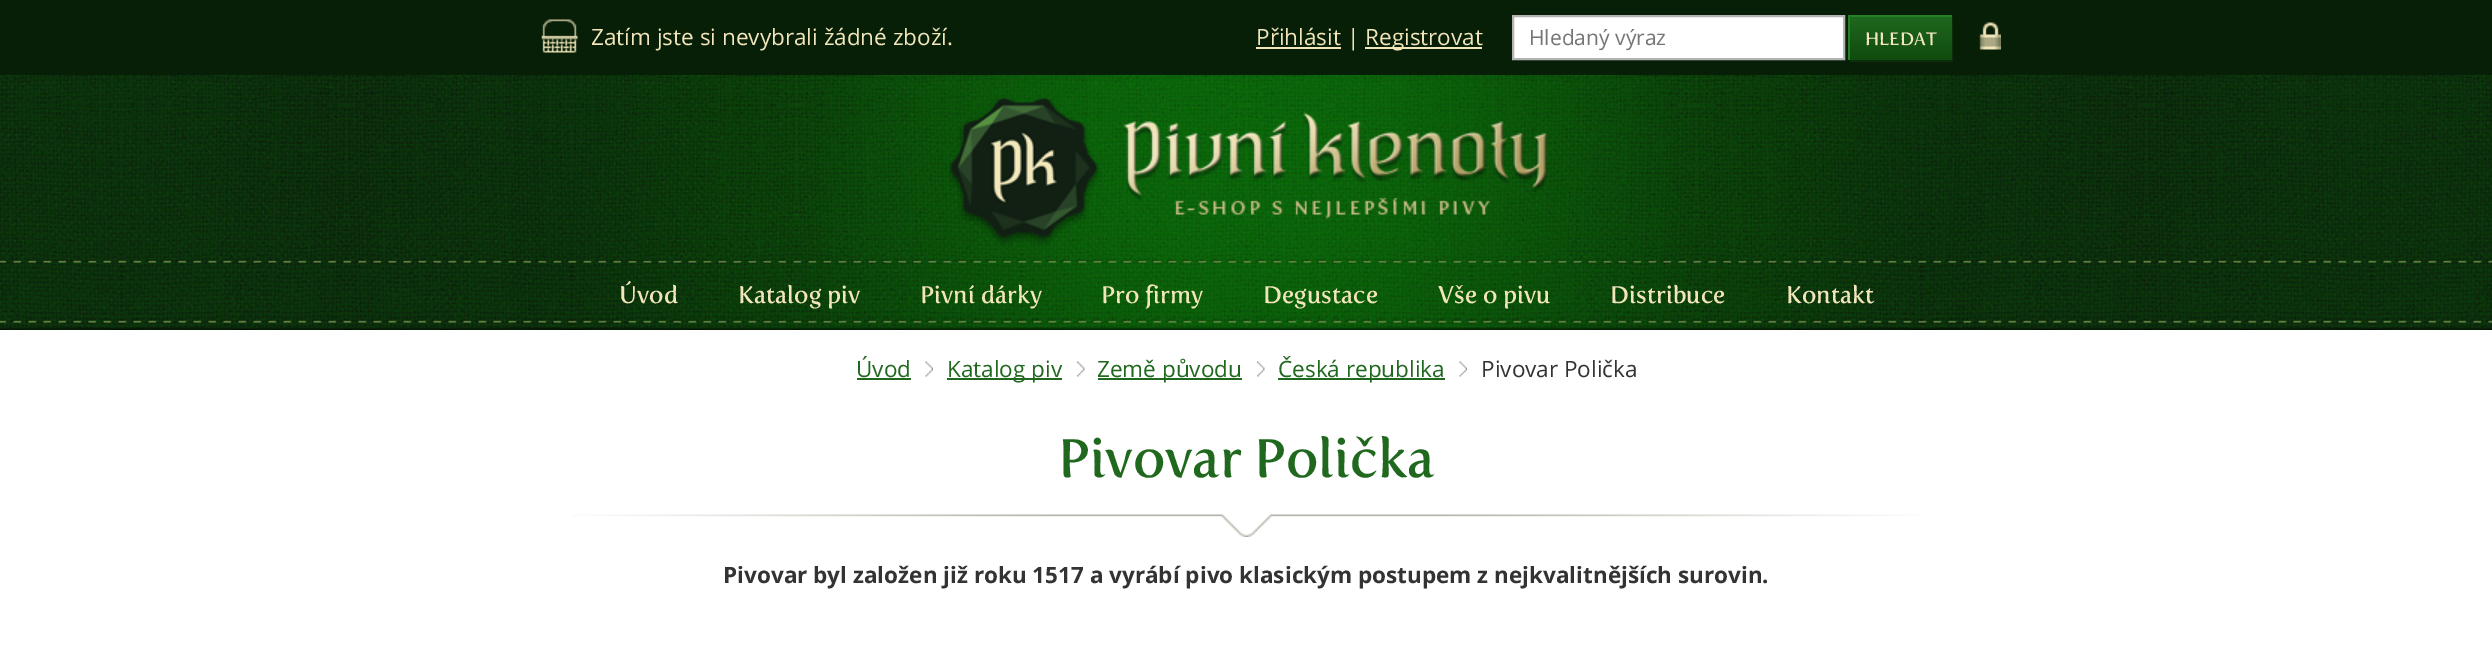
%!PS
<< /PageSize [2492 667] >> setpagedevice
/rgb { 3 { 255 div 3 1 roll } repeat setrgbcolor } def
/font { [ exch dup neg 0 0 3 -1 roll 0 0 ] selectfont } def
/picture { 5 dict begin { /h /w /y /x /name } { exch def } forall
  gsave x y translate w h scale
  w h 8 [w 0 0 h 0 0] name (r) file false 3 colorimage grestore end } def
0 667 translate 1 -1 scale
4 setmiterlimit
255 255 255 rgb
0 0 2492 667 rectfill
7 31 7 rgb
0 0 2492 75 rectfill
(img/1.rgb) 541 19 37 34 picture
241 229 185 rgb
1256 47 85 2 rectfill
1365 47 117 2 rectfill
255 255 255 rgb
1513 16 moveto 1844 16 lineto 1844 59 lineto 1513 59 lineto closepath gsave fill grestore
179 179 179 rgb
2 setlinewidth
stroke
12 46 11 rgb
1850 60 moveto 1850 62 lineto 1953 62 lineto 1953 17 lineto 1952 17 lineto 1952 60 lineto closepath fill
gsave 1850 17 moveto 1952 17 lineto 1952 60 lineto 1850 60 lineto closepath clip newpath
<< /ShadingType 2 /ColorSpace /DeviceRGB /Coords [1901 16 1901 60] /Extend [true true] /Function << /FunctionType 2 /Domain [0 1] /C0 [0.125 0.408 0.118] /C1 [0.059 0.294 0.055] /N 1 >> >> shfill grestore
36 130 34 rgb
1848 15 104 2 rectfill
1848 15 2 45 rectfill
(img/2.rgb) 1979 22 22 28 picture
(img/3.rgb) 0 75 2492 255 picture
(img/4.rgb) 511 75 1471 255 picture
(img/5.rgb) 948 97 599 148 picture
32 104 30 rgb
857 378 54 2 rectfill
(img/6.rgb) 925 361 8 16 picture
947 378 115 2 rectfill
(img/7.rgb) 1077 361 8 16 picture
1098 378 144 2 rectfill
(img/7.rgb) 1257 361 8 16 picture
1278 378 167 2 rectfill
(img/8.rgb) 1459 361 8 16 picture
(img/9.rgb) 572 514 1349 23 picture
/OpenSans-Regular 22.5 font
241 229 185 rgb
[
  [(Zatím jste si nevybrali žádné zboží.) 591 45]
  [(Přihlásit |) 1256 45]
  [(Registrovat) 1365 45]
] { aload pop moveto show } forall
/OpenSans-Regular 21 font
117 117 117 rgb
1529 45 moveto (Hledaný výraz) show
/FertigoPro-Regular 18 font
241 229 185 rgb
1865 45 moveto (HLEDAT) show
/FertigoPro-Regular 24 font
[
  [(Úvod) 619 303]
  [(Katalog piv) 738 303]
  [(Pivní dárky) 920 303]
  [(Pro firmy) 1101 303]
  [(Degustace) 1263 303]
  [(Vše o pivu) 1438 303]
  [(Distribuce) 1610 303]
  [(Kontakt) 1786 303]
] { aload pop moveto show } forall
/OpenSans-Regular 22.5 font
32 104 30 rgb
[
  [(Úvod) 856 377]
  [(Katalog piv) 947 377]
  [(Země původu) 1097 377]
  [(Česká republika) 1278 377]
] { aload pop moveto show } forall
51 51 51 rgb
1481 377 moveto (Pivovar Polička) show
/FertigoPro-Regular 54 font
32 104 30 rgb
1058 477 moveto (Pivovar Polička) show
/OpenSans-Bold 22.5 font
51 51 51 rgb
723 583 moveto (Pivovar byl založen již roku 1517 a vyrábí pivo klasickým postupem z nejkvalitnějších surovin.) show
showpage
